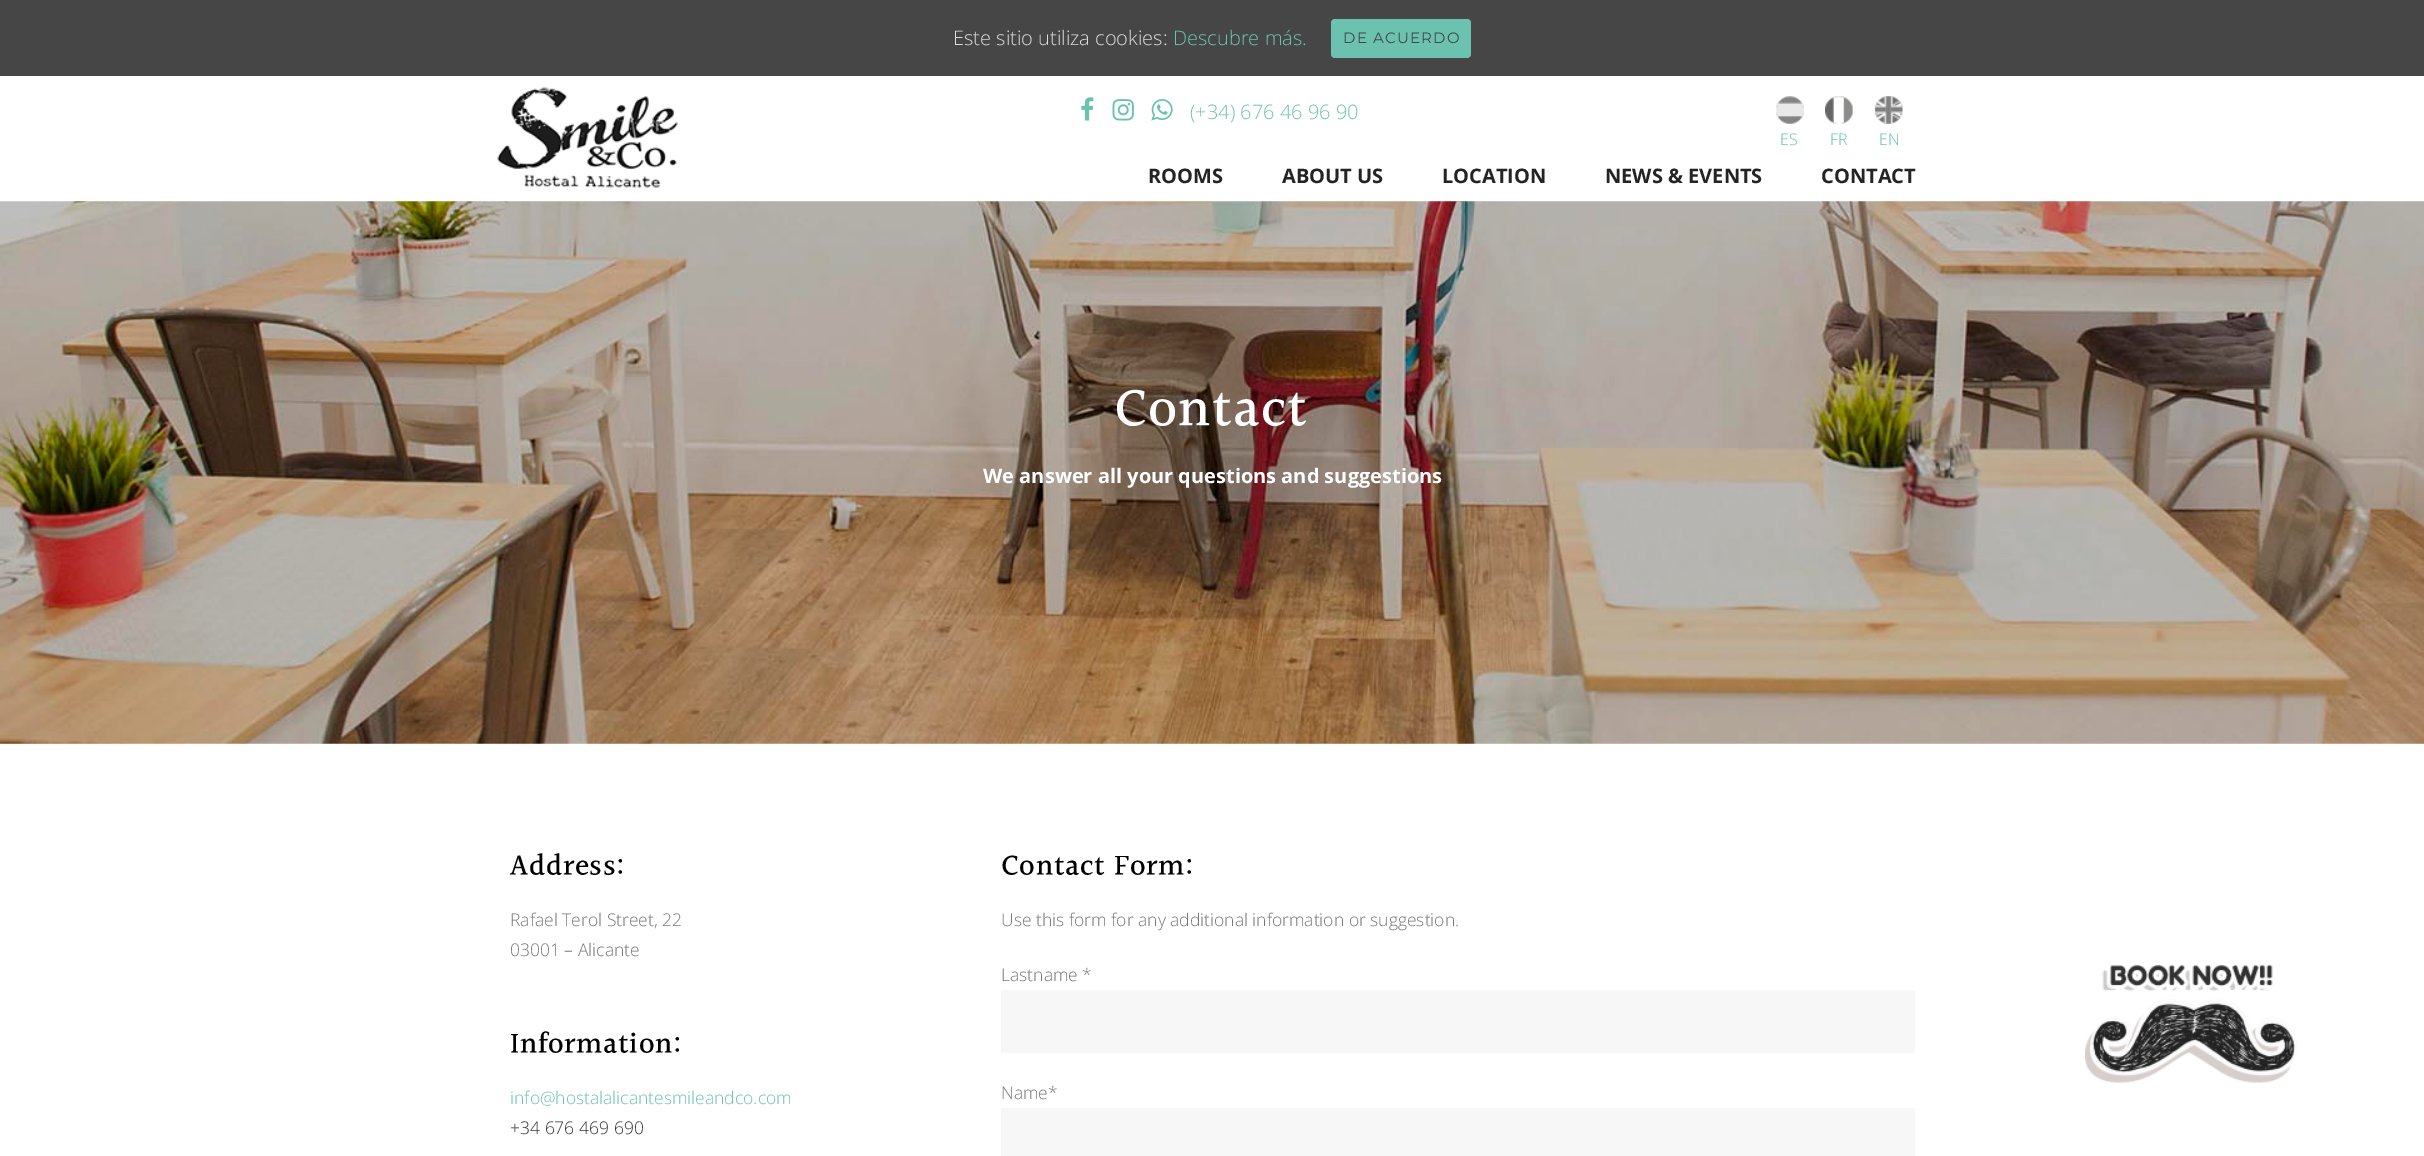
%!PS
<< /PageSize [2424 1156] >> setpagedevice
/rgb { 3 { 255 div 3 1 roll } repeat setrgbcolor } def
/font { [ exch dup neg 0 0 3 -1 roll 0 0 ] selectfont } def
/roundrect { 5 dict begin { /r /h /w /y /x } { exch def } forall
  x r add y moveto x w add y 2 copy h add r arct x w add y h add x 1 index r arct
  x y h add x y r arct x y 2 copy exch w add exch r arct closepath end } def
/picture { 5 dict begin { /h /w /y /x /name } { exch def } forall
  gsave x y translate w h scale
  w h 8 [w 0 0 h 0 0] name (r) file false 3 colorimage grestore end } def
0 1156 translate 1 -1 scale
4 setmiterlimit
255 255 255 rgb
0 0 2424 1156 rectfill
70 70 70 rgb
0 0 2424 76 rectfill
107 195 175 rgb
1331 19 140 39 4 roundrect fill
(img/1.rgb) 497 87 181 101 picture
(img/2.rgb) 1081 97 13 24 picture
(img/3.rgb) 1112 99 22 22 picture
(img/4.rgb) 1151 99 22 22 picture
(img/5.rgb) 1776 96 28 28 picture
(img/6.rgb) 1825 96 28 28 picture
(img/7.rgb) 1874 96 29 28 picture
(img/8.rgb) 0 201 2424 543 picture
247 247 247 rgb
1001 990 914 63 rectfill
1001 1108 914 48 rectfill
(img/9.rgb) 2085 964 212 119 picture
/OpenSans-Light 20 font
221 221 221 rgb
953 45 moveto (Este sitio utiliza cookies:) show
107 195 175 rgb
1173 45 moveto (Descubre más.) show
/Montserrat-Thin 15 font
70 70 70 rgb
1343 43 moveto 1.25 0 (DE ACUERDO) ashow
/OpenSans-Light 20 font
107 195 175 rgb
1190 119 moveto (\(+34\) 676 46 96 90) show
/OpenSans-Light 16 font
[
  [(ES) 1780 145]
  [(FR) 1830 145]
  [(EN) 1879 145]
] { aload pop moveto show } forall
/OpenSans-Bold 20 font
36 36 36 rgb
[
  [(ROOMS) 1148 183]
  [(ABOUT US) 1282 183]
  [(LOCATION) 1442 183]
  [(NEWS & EVENTS) 1605 183]
  [(CONTACT) 1821 183]
] { aload pop moveto show } forall
/Halant-Medium 56 font
255 255 255 rgb
1114 428 moveto 1 0 (Contact) ashow
/OpenSans-Bold 20 font
983 483 moveto (We answer all your questions and suggestions) show
/Halant-Medium 30 font
0 0 0 rgb
510 876 moveto 0.6 0 (Address:) ashow
/OpenSans-Light 17.5 font
119 119 119 rgb
510 926 moveto (Rafael Terol Street, 22) show
510 956 moveto (03001 – Alicante) show
/Halant-Medium 30 font
0 0 0 rgb
510 1054 moveto 0.6 0 (Information:) ashow
/OpenSans-Light 17.5 font
107 195 175 rgb
510 1104 moveto (info@hostalalicantesmileandco.com) show
51 51 51 rgb
510 1134 moveto (+34 676 469 690) show
/Halant-Medium 30 font
0 0 0 rgb
1001 876 moveto 0.6 0 (Contact Form:) ashow
/OpenSans-Light 17.5 font
119 119 119 rgb
[
  [(Use this form for any additional information or suggestion.) 1001 926]
  [(Lastname *) 1001 981]
  [(Name*) 1001 1099]
] { aload pop moveto show } forall
showpage
